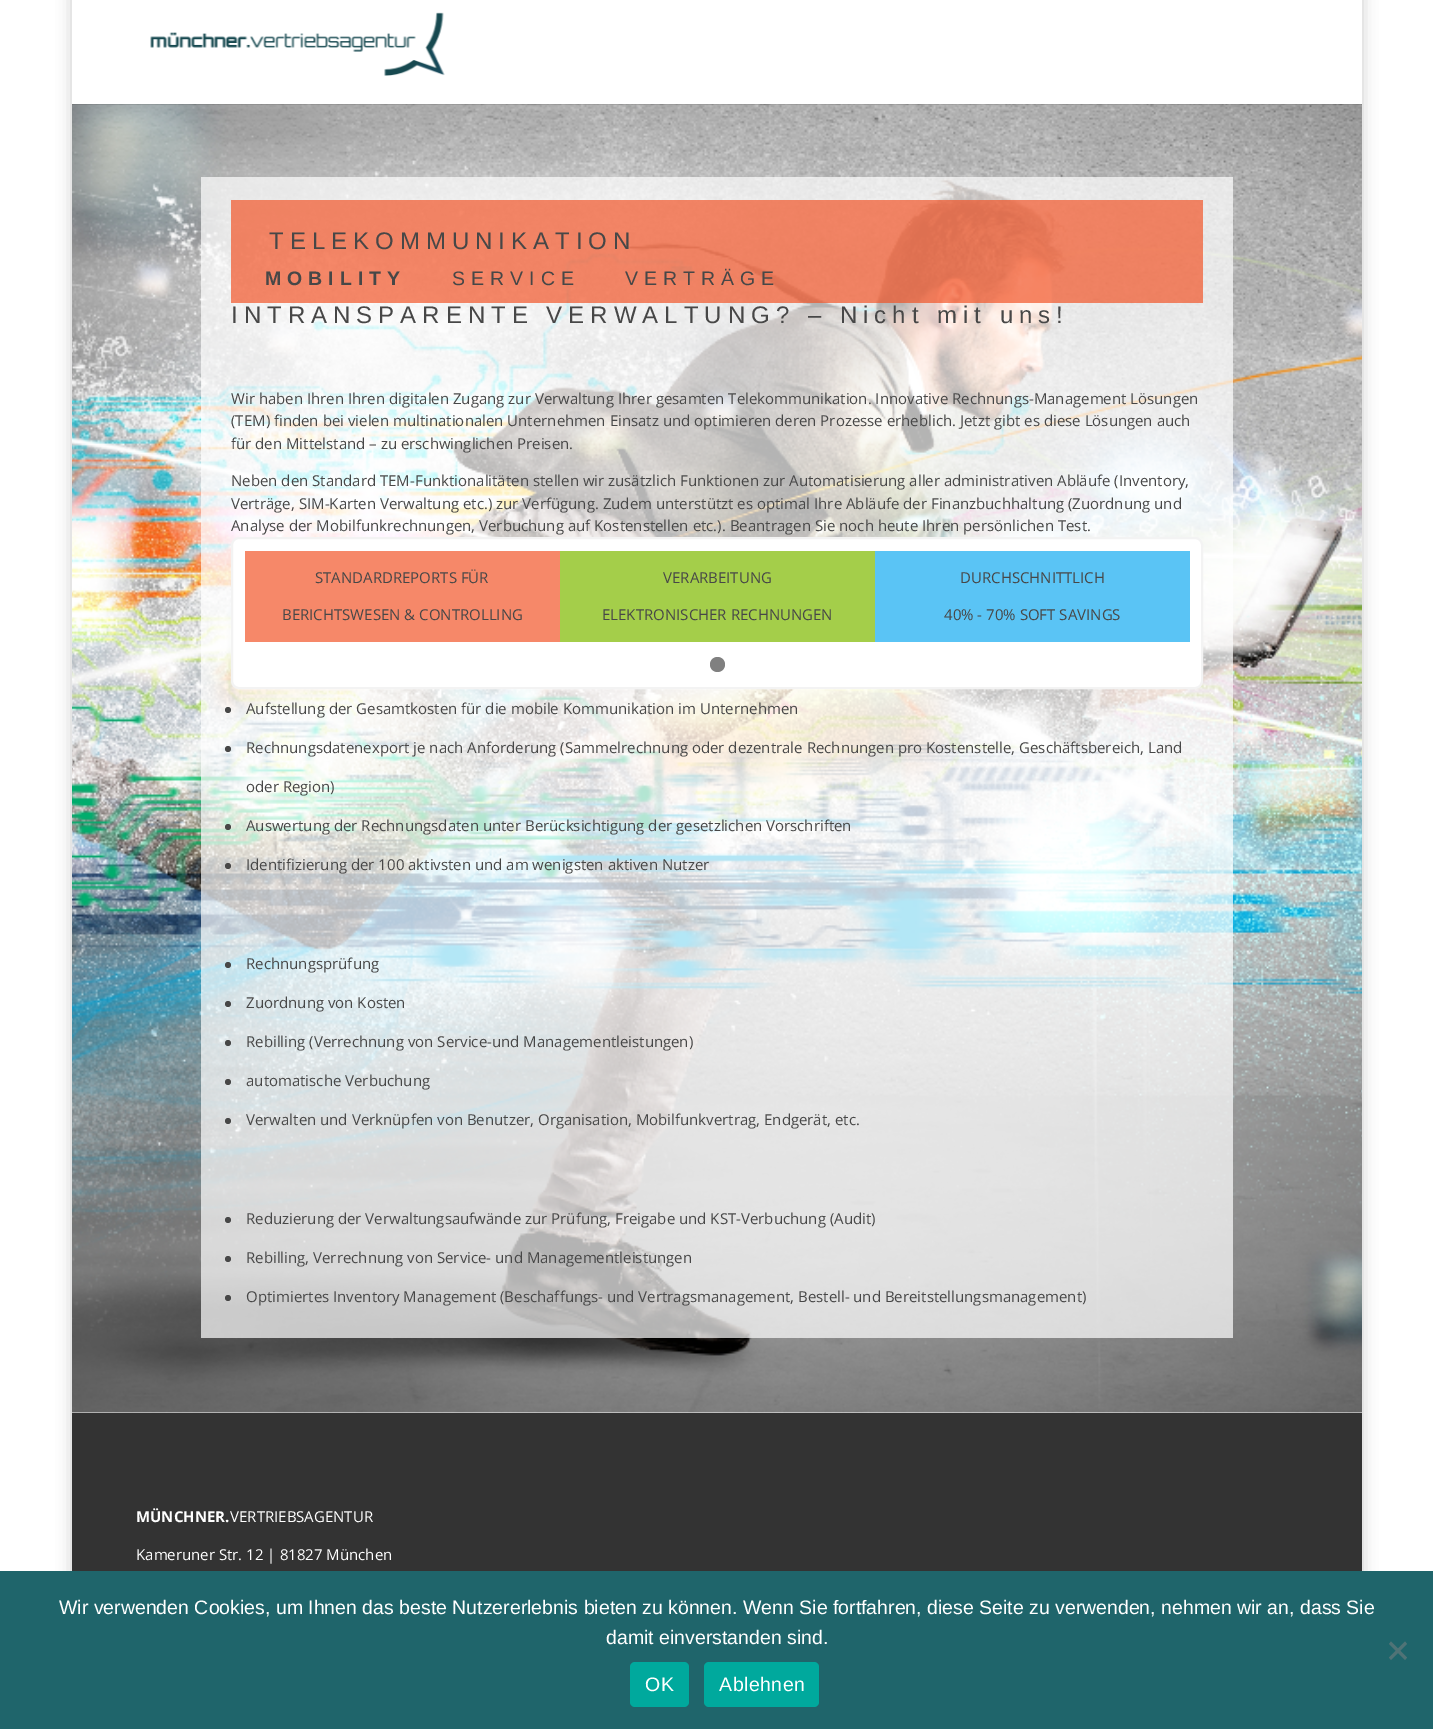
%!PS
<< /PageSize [1433 1729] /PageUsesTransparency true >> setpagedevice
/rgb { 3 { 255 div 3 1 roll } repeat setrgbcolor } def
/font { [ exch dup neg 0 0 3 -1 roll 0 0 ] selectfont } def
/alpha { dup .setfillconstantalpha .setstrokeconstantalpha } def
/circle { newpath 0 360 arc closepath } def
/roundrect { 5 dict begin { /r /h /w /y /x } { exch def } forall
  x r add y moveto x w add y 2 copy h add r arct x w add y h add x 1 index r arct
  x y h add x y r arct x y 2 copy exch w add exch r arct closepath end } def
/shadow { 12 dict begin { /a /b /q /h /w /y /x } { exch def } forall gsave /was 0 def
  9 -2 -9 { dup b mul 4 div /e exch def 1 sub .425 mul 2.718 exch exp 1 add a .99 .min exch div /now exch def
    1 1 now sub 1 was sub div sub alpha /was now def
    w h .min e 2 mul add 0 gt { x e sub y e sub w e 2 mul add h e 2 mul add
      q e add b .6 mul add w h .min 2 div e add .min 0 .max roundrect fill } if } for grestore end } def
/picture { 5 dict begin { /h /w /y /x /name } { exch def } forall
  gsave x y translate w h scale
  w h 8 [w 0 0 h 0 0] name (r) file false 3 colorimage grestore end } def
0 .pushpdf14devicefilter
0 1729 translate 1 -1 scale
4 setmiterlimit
255 255 255 rgb
0 0 1433 1729 rectfill
0 0 0 rgb
72 -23 1290 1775 0 7.5 0.2 shadow
(img/2.rgb) 72 104 1290 1309 picture
0.1 alpha
72 104 1290 1 rectfill
1 alpha
255 255 255 rgb
72 0 1290 104 rectfill
(img/1.rgb) 150 12 295 64 picture
0.7 alpha
[
  [201 177 1032 126 255 255 255]
] { aload pop rgb rectfill } forall
0.68 alpha
[
  [231 200 972 103 242 80 34]
] { aload pop rgb rectfill } forall
0.7 alpha
[
  [201 303 1032 234 255 255 255]
  [201 537 1032 152 255 255 255]
] { aload pop rgb rectfill } forall
1 alpha
232 538 970 150 7 roundrect gsave fill grestore
243 243 243 rgb
2 setlinewidth
stroke
[
  [245 551 315 91 246 136 105]
  [560 551 315 91 164 206 74]
  [875 551 315 91 90 196 245]
] { aload pop rgb rectfill } forall
128 128 128 rgb
717.5 664.5 7.5 circle fill
0.7 alpha
255 255 255 rgb
201 689 1032 649 rectfill
1 alpha
71 71 71 rgb
228 710 3 circle fill
228 749 3 circle fill
228 827 3 circle fill
228 866 3 circle fill
228 965 3 circle fill
228 1004 3 circle fill
228 1043 3 circle fill
228 1082 3 circle fill
228 1121 3 circle fill
228 1220 3 circle fill
228 1259 3 circle fill
228 1298 3 circle fill
51 51 51 rgb
72 1413 1290 158 rectfill
31 101 107 rgb
0 1571 1433 158 rectfill
80 115 118 rgb
1405 1641.5 moveto 1407 1644 lineto 1391 1660 lineto 1389 1657.5 lineto closepath fill
1389 1644 moveto 1391 1641.5 lineto 1407 1657.5 lineto 1405 1660 lineto closepath fill
0 169 157 rgb
630 1662 59 45 5 roundrect fill
704 1662 115 45 5 roundrect fill
/LiberationSans-Regular 24 font
71 71 71 rgb
269 249 moveto 6 0 (TELEKOMMUNIKATION) ashow
/LiberationSans-Bold 19.5 font
265 285 moveto 6 0 (MOBILITY) ashow
/LiberationSans-Regular 19.5 font
452 285 moveto 6 0 (SERVICE) ashow
625 285 moveto 6 0 (VERTRÄGE) ashow
/LiberationSans-Regular 24 font
231 323 moveto 6 0 (INTRANSPARENTE VERWALTUNG? – Nicht mit uns!) ashow
/OpenSans-Regular 15 font
[
  [(Wir haben Ihren Ihren digitalen Zugang zur Verwaltung Ihrer gesamten Telekommunikation. Innovative Rechnungs-Management Lösungen) 231 404]
  [(\(TEM\) finden bei vielen multinationalen Unternehmen Einsatz und optimieren deren Prozesse erheblich. Jetzt gibt es diese Lösungen auch) 231 426]
  [(für den Mittelstand – zu erschwinglichen Preisen.) 231 449]
  [(Neben den Standard TEM-Funktionalitäten stellen wir zusätzlich Funktionen zur Automatisierung aller administrativen Abläufe \(Inventory,) 231 486]
  [(Verträge, SIM-Karten Verwaltung etc.\) zur Verfügung. Zudem unterstützt es optimal Ihre Abläufe der Finanzbuchhaltung \(Zuordnung und) 231 509]
  [(Analyse der Mobilfunkrechnungen, Verbuchung auf Kostenstellen etc.\). Beantragen Sie noch heute Ihren persönlichen Test.) 231 531]
  [(STANDARDREPORTS FÜR) 315 583]
  [(BERICHTSWESEN & CONTROLLING) 282 620]
  [(VERARBEITUNG) 663 583]
  [(ELEKTRONISCHER RECHNUNGEN) 602 620]
  [(DURCHSCHNITTLICH) 960 583]
  [(40% - 70% SOFT SAVINGS) 944 620]
  [(Aufstellung der Gesamtkosten für die mobile Kommunikation im Unternehmen) 246 714]
  [(Rechnungsdatenexport je nach Anforderung \(Sammelrechnung oder dezentrale Rechnungen pro Kostenstelle, Geschäftsbereich, Land) 246 753]
  [(oder Region\)) 246 792]
  [(Auswertung der Rechnungsdaten unter Berücksichtigung der gesetzlichen Vorschriften) 246 831]
  [(Identifizierung der 100 aktivsten und am wenigsten aktiven Nutzer) 246 870]
  [(Rechnungsprüfung) 246 969]
  [(Zuordnung von Kosten) 246 1008]
  [(Rebilling \(Verrechnung von Service-und Managementleistungen\)) 246 1047]
  [(automatische Verbuchung) 246 1086]
  [(Verwalten und Verknüpfen von Benutzer, Organisation, Mobilfunkvertrag, Endgerät, etc.) 246 1125]
  [(Reduzierung der Verwaltungsaufwände zur Prüfung, Freigabe und KST-Verbuchung \(Audit\)) 246 1224]
  [(Rebilling, Verrechnung von Service- und Managementleistungen) 246 1263]
  [(Optimiertes Inventory Management \(Beschaffungs- und Vertragsmanagement, Bestell- und Bereitstellungsmanagement\)) 246 1302]
] { aload pop moveto show } forall
/OpenSans-Bold 15 font
255 255 255 rgb
136 1522 moveto (MÜNCHNER.) show
/OpenSans-Regular 15 font
230 1522 moveto (VERTRIEBSAGENTUR) show
136 1560 moveto (Kameruner Str. 12 | 81827 München) show
/LiberationSans-Regular 19.5 font
59 1614 moveto (Wir verwenden Cookies, um Ihnen das beste Nutzererlebnis bieten zu können. Wenn Sie fortfahren, diese Seite zu verwenden, nehmen wir an, dass Sie) show
606 1644 moveto (damit einverstanden sind.) show
645 1691 moveto 0.5 0 (OK) ashow
719 1691 moveto 0.5 0 (Ablehnen) ashow
.poppdf14devicefilter showpage
